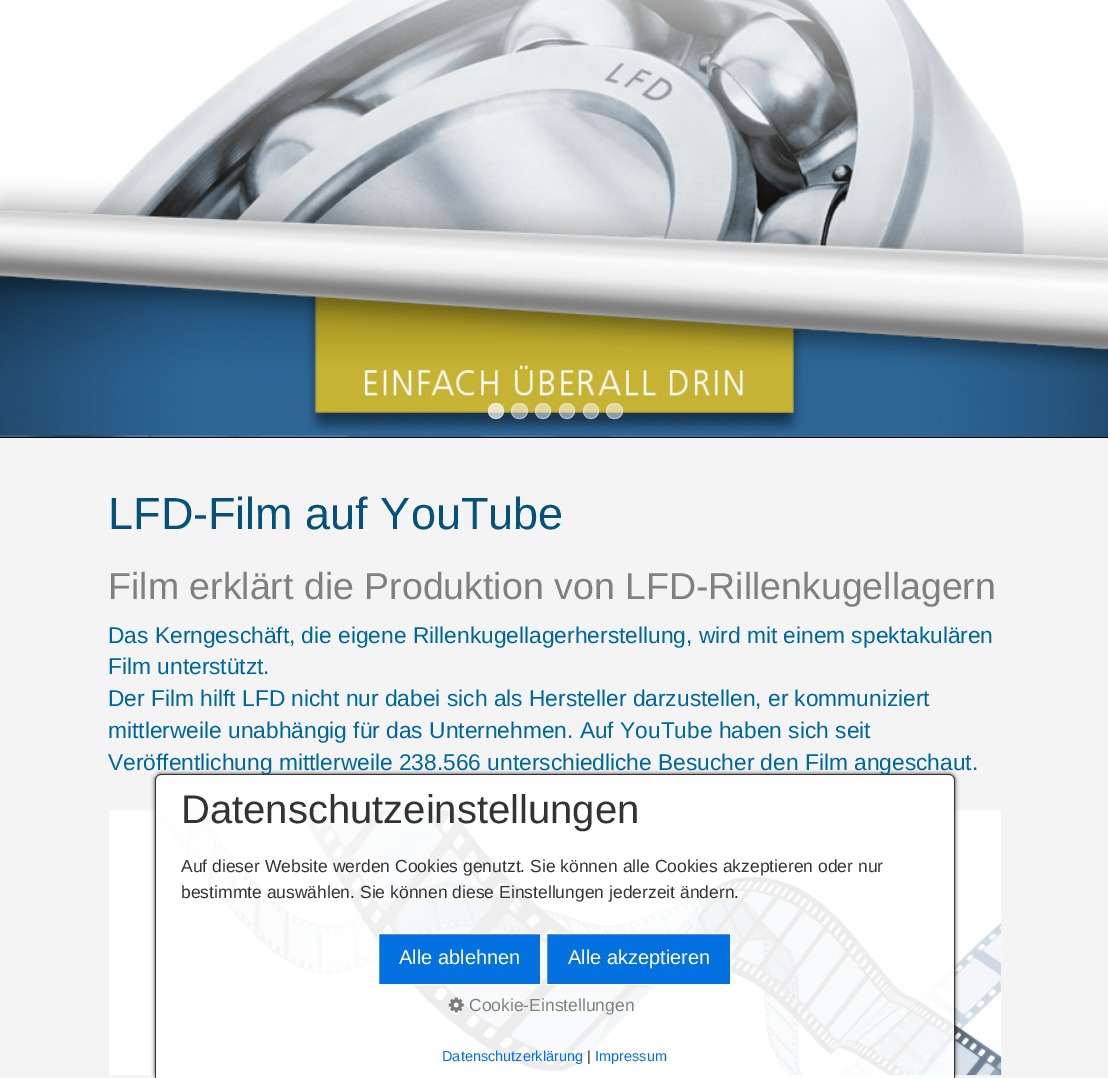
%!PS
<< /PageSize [1108 1078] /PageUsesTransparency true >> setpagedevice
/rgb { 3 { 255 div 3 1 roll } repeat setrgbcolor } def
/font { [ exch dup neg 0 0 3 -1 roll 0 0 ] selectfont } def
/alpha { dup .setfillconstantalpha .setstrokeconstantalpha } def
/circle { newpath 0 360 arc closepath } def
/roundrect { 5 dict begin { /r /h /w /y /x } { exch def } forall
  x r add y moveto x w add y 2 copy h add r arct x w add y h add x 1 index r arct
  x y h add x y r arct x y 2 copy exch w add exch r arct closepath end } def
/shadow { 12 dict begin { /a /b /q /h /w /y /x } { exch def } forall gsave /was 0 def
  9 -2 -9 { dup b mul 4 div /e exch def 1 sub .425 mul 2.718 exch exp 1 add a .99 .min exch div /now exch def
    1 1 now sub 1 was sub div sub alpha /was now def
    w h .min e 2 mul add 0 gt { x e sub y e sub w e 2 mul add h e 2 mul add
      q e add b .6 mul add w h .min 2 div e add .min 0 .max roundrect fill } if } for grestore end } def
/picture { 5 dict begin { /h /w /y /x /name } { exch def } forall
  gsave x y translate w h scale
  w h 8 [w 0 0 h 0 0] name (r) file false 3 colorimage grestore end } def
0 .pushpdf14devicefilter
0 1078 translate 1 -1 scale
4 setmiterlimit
244 244 244 rgb
0 0 1108 1078 rectfill
0 0 0 rgb
0 437 1108 1 rectfill
(img/1.rgb) 0 0 1108 437 picture
0.7 alpha
255 255 255 rgb
496 411 8 circle fill
0.3 alpha
496 411 7.5 circle stroke
0.5 alpha
511 403 17 16 8 roundrect fill
0.3 alpha
511.5 403.5 16 15 7.5 roundrect stroke
0.5 alpha
543 411 8 circle fill
0.3 alpha
543 411 7.5 circle stroke
0.5 alpha
567 411 8 circle fill
0.3 alpha
567 411 7.5 circle stroke
0.5 alpha
591 411 8 circle fill
0.3 alpha
591 411 7.5 circle stroke
0.5 alpha
606 403 17 16 8 roundrect fill
0.3 alpha
606.5 403.5 16 15 7.5 roundrect stroke
1 alpha
(img/2.rgb) 109 810 893 266 picture
gsave
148 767 moveto 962 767 lineto 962 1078 lineto 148 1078 lineto closepath 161 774 moveto 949 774 lineto 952.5 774 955 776.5 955 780 curveto 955 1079 lineto 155 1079 lineto 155 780 lineto 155 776.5 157.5 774 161 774 curveto closepath eoclip newpath
0 0 0 rgb
155 774 800 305 6 2 0.8 shadow
grestore
/LiberationSans-Regular 45 font
6 81 124 rgb
108 529 moveto (LFD-Film auf YouTube) show
/LiberationSans-Regular 37.5 font
128 128 128 rgb
108 599 moveto (Film erklärt die Produktion von LFD-Rillenkugellagern) show
/LiberationSans-Regular 22.75 font
0 103 154 rgb
[
  [(Das Kerngeschäft, die eigene Rillenkugellagerherstellung, wird mit einem spektakulären) 108 643]
  [(Film unterstützt.) 108 674]
  [(Der Film hilft LFD nicht nur dabei sich als Hersteller darzustellen, er kommuniziert) 108 706]
  [(mittlerweile unabhängig für das Unternehmen. Auf YouTube haben sich seit) 108 738]
  [(Veröffentlichung mittlerweile 238.566 unterschiedliche Besucher den Film angeschaut.) 108 770]
] { aload pop moveto show } forall
0.9 alpha
255 255 255 rgb
161 774 moveto 949 774 lineto 952.5 774 955 776.5 955 780 curveto 955 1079 lineto 155 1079 lineto 155 780 lineto 155 776.5 157.5 774 161 774 curveto closepath fill
1 alpha
51 51 51 rgb
161 774 moveto 949 774 lineto 952 774 955 777 955 780 curveto 955 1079 lineto 155 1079 lineto 155 780 lineto 155 777 158 774 161 774 curveto closepath 161 775 moveto 949 775 lineto 952 775 954 777 954 780 curveto 954 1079 lineto 156 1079 lineto 156 780 lineto 156 777 158 775 161 775 curveto closepath eofill
/LiberationSans-Regular 40 font
181 823 moveto (Datenschutzeinstellungen) show
/LiberationSans-Regular 17.5 font
181 872 moveto (Auf dieser Website werden Cookies genutzt. Sie können alle Cookies akzeptieren oder nur) show
181 898 moveto (bestimmte auswählen. Sie können diese Einstellungen jederzeit ändern.) show
3 113 223 rgb
378.5 933.5 moveto 540.5 933.5 lineto 540.5 984.5 lineto 378.5 984.5 lineto closepath gsave fill grestore
255 255 255 rgb
stroke
/LiberationSans-Regular 20 font
399 964 moveto (Alle ablehnen) show
3 113 223 rgb
546.5 933.5 moveto 730.5 933.5 lineto 730.5 984.5 lineto 546.5 984.5 lineto closepath gsave fill grestore
255 255 255 rgb
stroke
568 964 moveto (Alle akzeptieren) show
(img/3.rgb) 448 997 16 16 picture
/LiberationSans-Regular 17.5 font
128 128 128 rgb
469 1011 moveto (Cookie-Einstellungen) show
/LiberationSans-Regular 14.5 font
3 113 223 rgb
442 1061 moveto (Datenschutzerklärung) show
51 51 51 rgb
587 1061 moveto (|) show
3 113 223 rgb
595 1061 moveto (Impressum) show
.poppdf14devicefilter showpage
